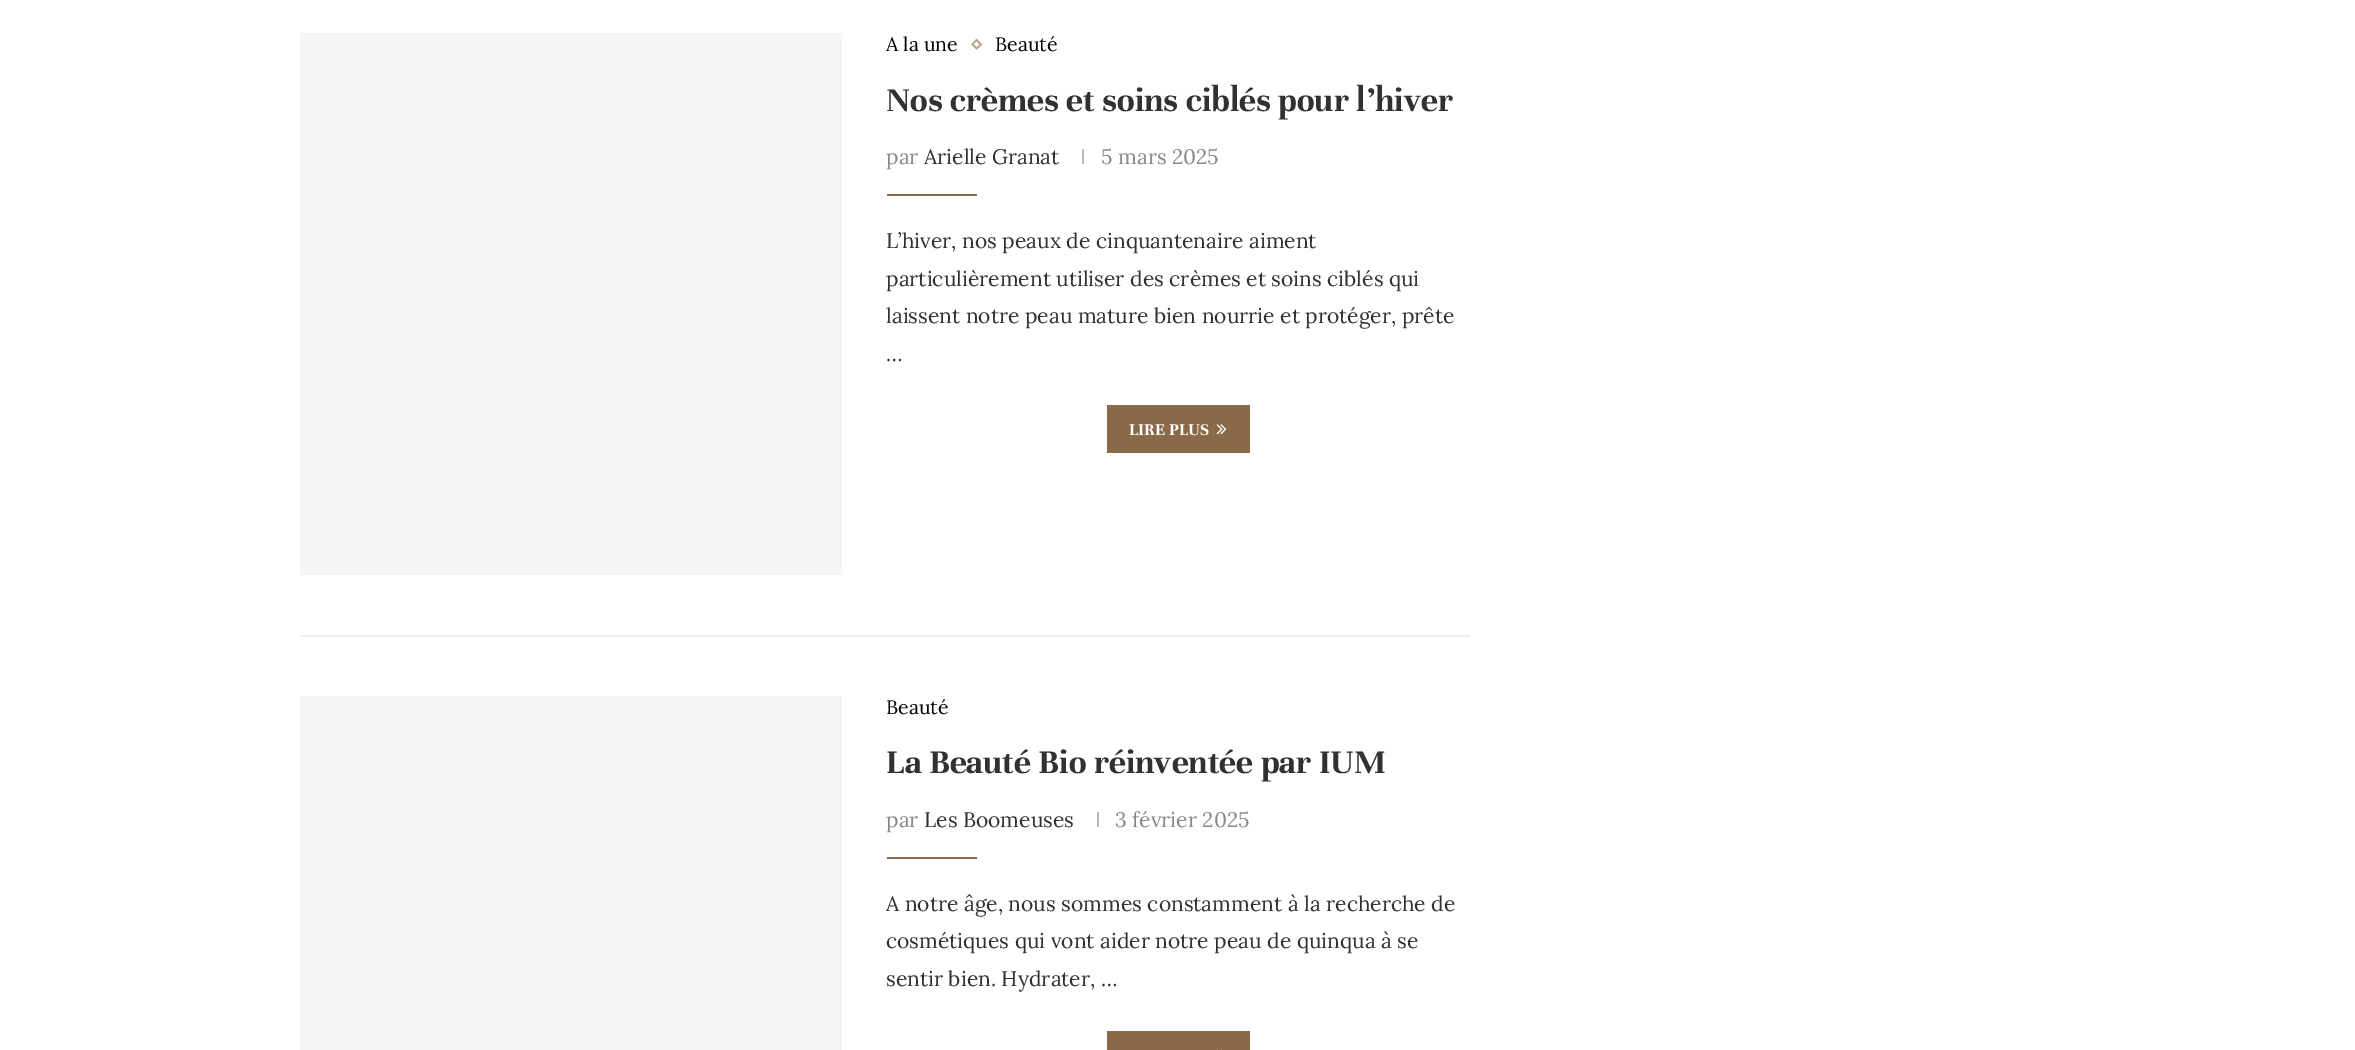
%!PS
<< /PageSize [2355 1050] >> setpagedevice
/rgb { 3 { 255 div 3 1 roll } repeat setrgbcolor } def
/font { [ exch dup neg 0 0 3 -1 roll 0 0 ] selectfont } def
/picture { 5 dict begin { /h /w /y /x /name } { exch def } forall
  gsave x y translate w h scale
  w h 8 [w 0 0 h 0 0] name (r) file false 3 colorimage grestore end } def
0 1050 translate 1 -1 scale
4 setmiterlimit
255 255 255 rgb
0 0 2355 1050 rectfill
238 238 238 rgb
300 635 1170 2 rectfill
245 245 245 rgb
300 33 542 542 rectfill
178 158 136 rgb
1.5 setlinewidth
976.5 40 moveto 981 44.5 lineto 976.5 48.5 lineto 972.5 44.5 lineto closepath stroke
[
  [1082 149 2 15 184 184 184]
  [887 194 90 2 137 105 72]
  [1107 405 143 48 137 105 72]
] { aload pop rgb rectfill } forall
(img/1.rgb) 1216 424 11 11 picture
[
  [300 696 542 354 245 245 245]
  [1097 812 2 15 184 184 184]
  [887 857 90 2 137 105 72]
  [1107 1031 143 19 137 105 72]
] { aload pop rgb rectfill } forall
(img/2.rgb) 1217 1049 5 1 picture
/Lora-Regular 19.5 font
0 0 0 rgb
886 51 moveto (A la une) show
995 51 moveto (Beauté) show
/Unna-Bold 36 font
49 49 49 rgb
886 111 moveto (Nos crèmes et soins ciblés pour l’hiver) show
/Lora-Regular 21 font
136 136 136 rgb
886 164 moveto (par) show
49 49 49 rgb
924 164 moveto (Arielle Granat) show
136 136 136 rgb
1101 164 moveto (5 mars 2025) show
49 49 49 rgb
[
  [(L’hiver, nos peaux de cinquantenaire aiment) 886 248]
  [(particulièrement utiliser des crèmes et soins ciblés qui) 886 286]
  [(laissent notre peau mature bien nourrie et protéger, prête) 886 323]
  [(…) 886 361]
] { aload pop moveto show } forall
/Unna-Bold 18 font
255 255 255 rgb
1129 435 moveto (LIRE PLUS) show
/Lora-Regular 19.5 font
0 0 0 rgb
886 714 moveto (Beauté) show
/Unna-Bold 36 font
49 49 49 rgb
886 773 moveto (La Beauté Bio réinventée par IUM) show
/Lora-Regular 21 font
136 136 136 rgb
886 827 moveto (par) show
49 49 49 rgb
924 827 moveto (Les Boomeuses) show
136 136 136 rgb
1115 827 moveto (3 février 2025) show
49 49 49 rgb
[
  [(A notre âge, nous sommes constamment à la recherche de) 886 911]
  [(cosmétiques qui vont aider notre peau de quinqua à se) 886 948]
  [(sentir bien. Hydrater, …) 886 986]
] { aload pop moveto show } forall
showpage
